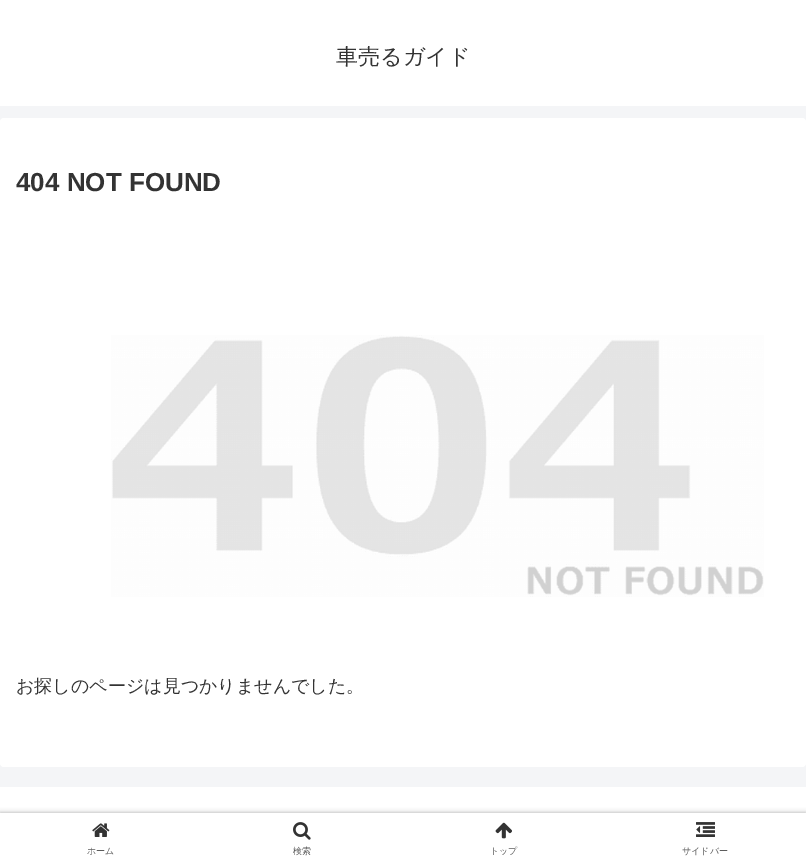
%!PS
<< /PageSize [806 863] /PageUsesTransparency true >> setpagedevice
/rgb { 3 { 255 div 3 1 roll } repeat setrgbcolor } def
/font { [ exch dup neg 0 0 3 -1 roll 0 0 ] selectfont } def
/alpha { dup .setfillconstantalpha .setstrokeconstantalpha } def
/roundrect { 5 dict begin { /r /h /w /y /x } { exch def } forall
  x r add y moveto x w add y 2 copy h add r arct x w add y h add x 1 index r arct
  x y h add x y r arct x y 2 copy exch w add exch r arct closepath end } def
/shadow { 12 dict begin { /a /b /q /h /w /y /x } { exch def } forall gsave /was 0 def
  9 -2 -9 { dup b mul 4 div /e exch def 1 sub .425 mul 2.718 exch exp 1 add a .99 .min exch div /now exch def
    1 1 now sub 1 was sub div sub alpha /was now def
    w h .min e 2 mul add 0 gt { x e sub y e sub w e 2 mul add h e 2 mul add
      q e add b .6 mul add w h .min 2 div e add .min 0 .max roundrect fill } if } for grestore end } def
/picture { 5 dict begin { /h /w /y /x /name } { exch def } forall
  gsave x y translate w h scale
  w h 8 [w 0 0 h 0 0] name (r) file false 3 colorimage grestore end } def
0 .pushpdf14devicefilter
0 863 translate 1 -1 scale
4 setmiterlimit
244 245 247 rgb
0 0 806 863 rectfill
255 255 255 rgb
0 0 806 106 rectfill
0 118 806 649 4 roundrect fill
(img/1.rgb) 111 335 653 262 picture
0 787 806 26 rectfill
169 169 169 rgb
0 813 806 50 0 2.5 1 shadow
255 255 255 rgb
0 813 806 50 rectfill
(img/2.rgb) 92 823 18 14 picture
(img/3.rgb) 293 822 18 18 picture
(img/4.rgb) 495 822 17 17 picture
(img/5.rgb) 696 822 19 15 picture
/WenQuanYiZenHei-Medium 22 font
51 51 51 rgb
336 64 moveto (車売るガイド) show
/LiberationSans-Bold 26 font
16 191 moveto (404 NOT FOUND) show
/WenQuanYiZenHei-Medium 18 font
16 692 moveto (お探しのページは見つかりませんでした。) show
/WenQuanYiZenHei-Medium 9 font
92 92 92 rgb
[
  [(ホーム) 87 854]
  [(検索) 293 854]
  [(トップ) 490 854]
  [(サイドバー) 682 854]
] { aload pop moveto show } forall
.poppdf14devicefilter showpage
